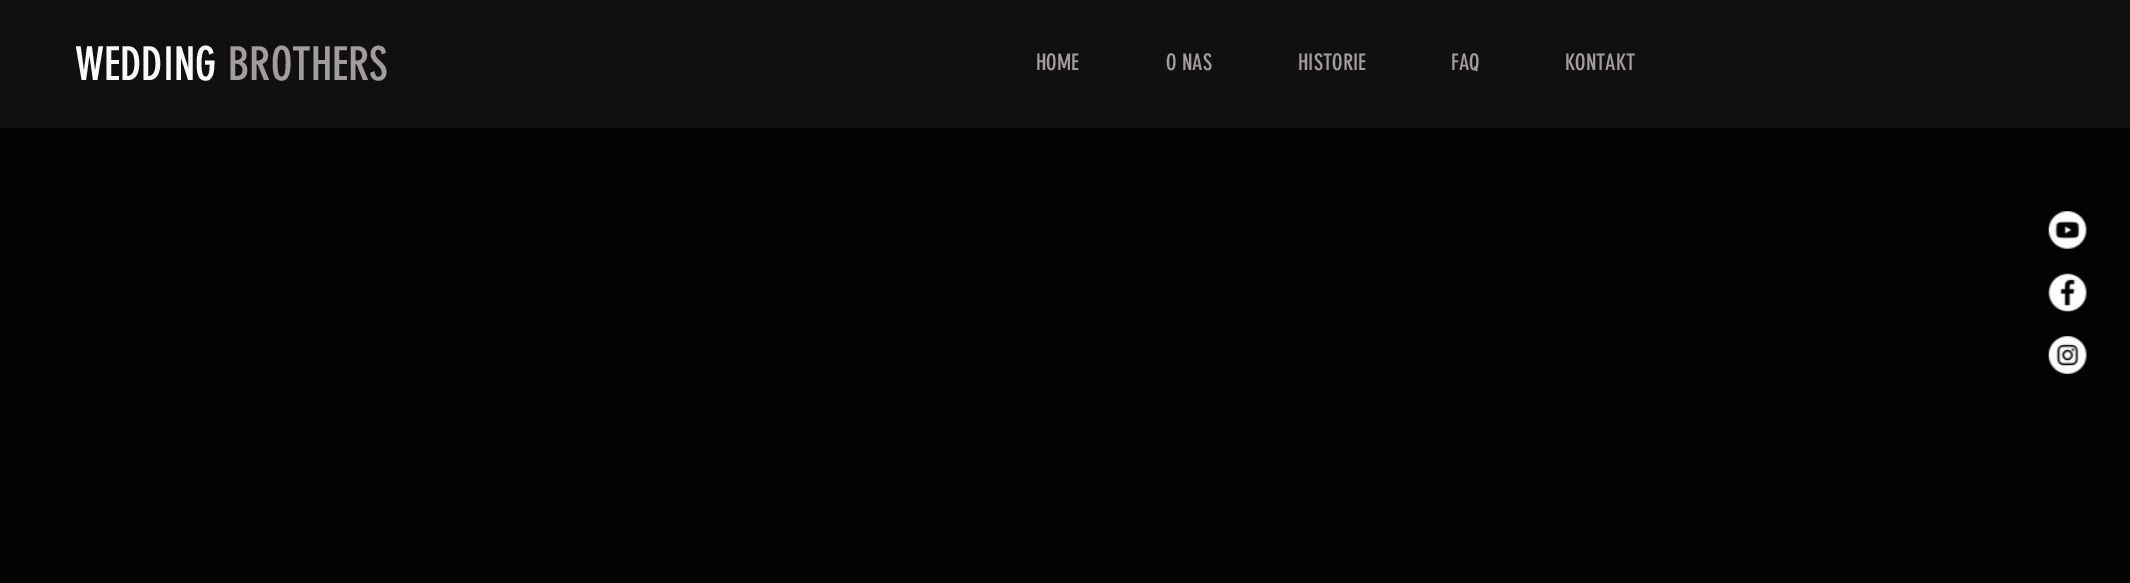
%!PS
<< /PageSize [2130 583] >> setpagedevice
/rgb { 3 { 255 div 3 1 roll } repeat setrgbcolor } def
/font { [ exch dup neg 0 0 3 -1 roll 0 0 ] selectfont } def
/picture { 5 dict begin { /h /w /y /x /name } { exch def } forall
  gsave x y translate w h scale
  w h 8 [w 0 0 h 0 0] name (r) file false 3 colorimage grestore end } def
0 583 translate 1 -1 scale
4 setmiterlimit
2 2 2 rgb
0 0 2130 583 rectfill
16 16 16 rgb
0 0 2130 128 rectfill
(img/1.rgb) 2048 211 39 38 picture
(img/2.rgb) 2048 273 39 39 picture
(img/3.rgb) 2048 336 39 38 picture
/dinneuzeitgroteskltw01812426-Regular 46 font
250 250 250 rgb
75 80 moveto (WEDDING) show
162 156 156 rgb
228 80 moveto (BROTHERS) show
/dinneuzeitgroteskltw01812426-Regular 22.5 font
[
  [(HOME) 1036 70]
  [(O NAS) 1166 70]
  [(HISTORIE) 1298 70]
  [(FAQ) 1451 70]
  [(KONTAKT) 1565 70]
] { aload pop moveto show } forall
showpage
